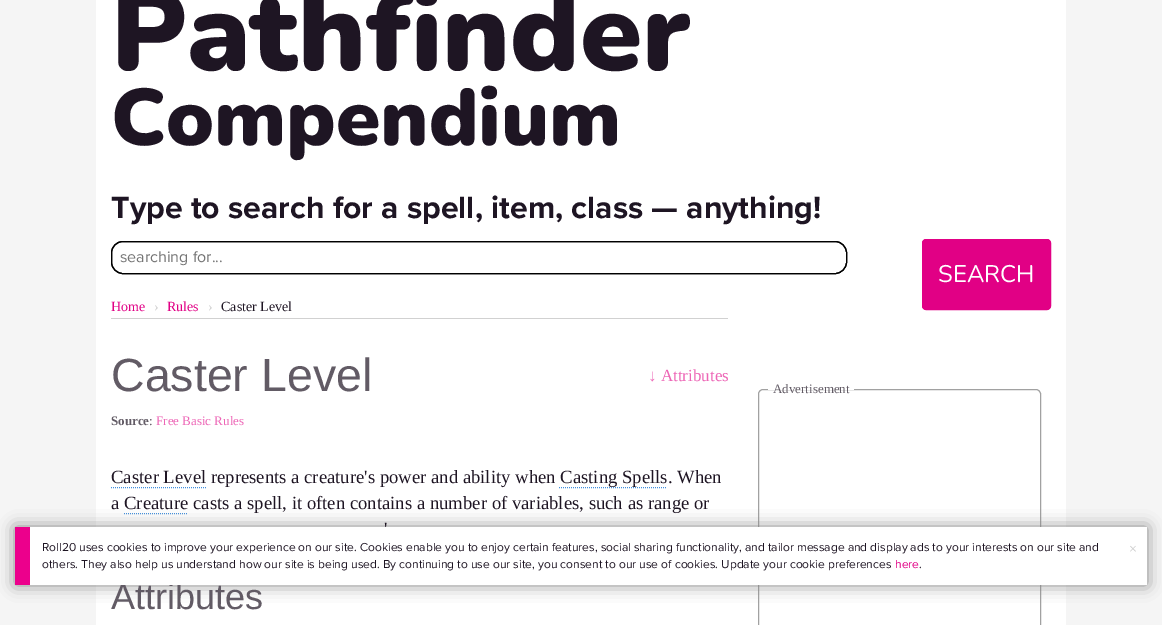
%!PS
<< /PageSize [1162 625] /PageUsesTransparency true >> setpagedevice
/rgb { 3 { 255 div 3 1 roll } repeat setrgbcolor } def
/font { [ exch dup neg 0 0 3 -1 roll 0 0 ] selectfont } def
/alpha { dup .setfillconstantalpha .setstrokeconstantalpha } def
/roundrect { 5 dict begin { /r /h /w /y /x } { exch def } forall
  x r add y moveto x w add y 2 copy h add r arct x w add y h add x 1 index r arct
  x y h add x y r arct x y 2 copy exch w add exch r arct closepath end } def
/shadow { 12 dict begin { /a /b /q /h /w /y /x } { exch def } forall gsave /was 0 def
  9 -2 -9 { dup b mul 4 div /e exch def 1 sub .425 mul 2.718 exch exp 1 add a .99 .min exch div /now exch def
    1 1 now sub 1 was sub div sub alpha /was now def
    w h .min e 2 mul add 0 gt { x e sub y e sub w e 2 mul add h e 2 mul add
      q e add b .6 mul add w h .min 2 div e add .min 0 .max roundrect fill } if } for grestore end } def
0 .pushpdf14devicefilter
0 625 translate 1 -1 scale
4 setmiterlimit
245 245 245 rgb
0 0 1162 625 rectfill
255 255 255 rgb
96 0 970 625 rectfill
0 0 0 rgb
111.5 241.5 735 32 11.5 roundrect stroke
111.5 241.5 735 32 11.5 roundrect stroke
225 0 133 rgb
922.5 239.5 128 70 3.5 roundrect gsave fill grestore
stroke
209 209 209 rgb
111 318 617 1 rectfill
65 143 222 rgb
[1 1] 0 setdash
111 487.5 moveto 206 487.5 lineto stroke
559 487.5 moveto 667 487.5 lineto stroke
124 513.5 moveto 188 513.5 lineto stroke
161 161 161 rgb
[] 0 setdash
758.5 389.5 282 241 4.5 roundrect stroke
255 255 255 rgb
768 389 86 1 rectfill
136 136 136 rgb
15 527 1132 58 0 8 1 shadow
236 0 140 rgb
15 527 15 58 rectfill
/Nunito-Black 112 font
30 21 35 rgb
111 70 moveto (Pathfinder) show
/Nunito-Black 80 font
111 145 moveto (Compendium) show
/ProximaNova-Bold 32 font
111 218 moveto (Type to search for a spell, item, class — anything!) show
/ProximaNova-Regular 16 font
117 117 117 rgb
120 262 moveto (searching for...) show
/Nunito-Regular 24 font
255 255 255 rgb
938 282 moveto (SEARCH) show
/LiberationSerif-Regular 14 font
225 0 133 rgb
111 311 moveto (Home) show
204 204 204 rgb
154 311 moveto (›) show
225 0 133 rgb
167 311 moveto (Rules) show
204 204 204 rgb
208 311 moveto (›) show
30 21 35 rgb
221 311 moveto (Caster Level) show
/LiberationSans-Regular 46.5 font
98 91 101 rgb
111 391 moveto (Caster Level) show
/LiberationSerif-Regular 17 font
237 102 182 rgb
648 381 moveto (↓ Attributes) show
/LiberationSerif-Bold 13 font
98 91 101 rgb
111 425 moveto (Source) show
/LiberationSerif-Regular 13 font
149 425 moveto (:) show
237 102 182 rgb
156 425 moveto (Free Basic Rules) show
/LiberationSerif-Regular 18.7 font
30 21 35 rgb
[
  [(Caster Level represents a creature's power and ability when Casting Spells. When) 111 483]
  [(a Creature casts a spell, it often contains a number of variables, such as range or) 111 509]
  [(') 384 535]
] { aload pop moveto show } forall
/LiberationSans-Regular 36 font
98 91 101 rgb
111 609 moveto (Attributes) show
/LiberationSerif-Regular 13 font
773 393 moveto (Advertisement) show
255 255 255 rgb
30 527 1117 58 rectfill
/ProximaNova-Regular 12 font
30 21 35 rgb
42 551 moveto (Roll20 uses cookies to improve your experience on our site. Cookies enable you to enjoy certain features, social sharing functionality, and tailor message and display ads to your interests on our site and) show
42 568 moveto (others. They also help us understand how our site is being used. By continuing to use our site, you consent to our use of cookies. Update your cookie preferences) show
225 0 133 rgb
895 568 moveto (here) show
30 21 35 rgb
919 568 moveto (.) show
/ProximaNova-Regular 16 font
204 204 204 rgb
1129 554 moveto (×) show
.poppdf14devicefilter showpage
